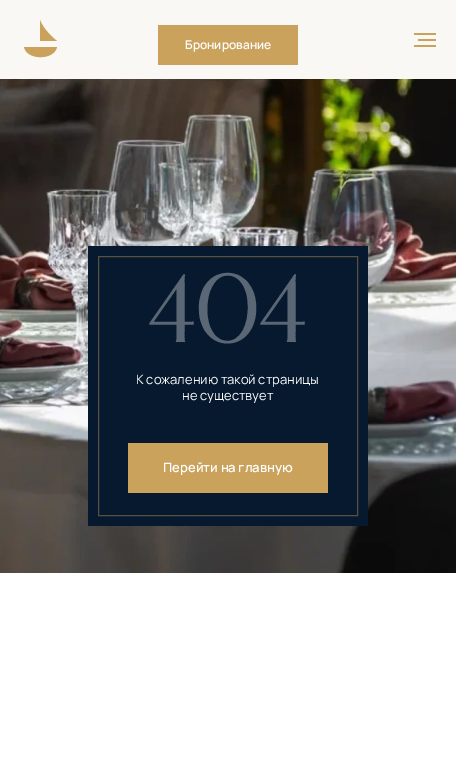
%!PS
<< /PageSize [456 772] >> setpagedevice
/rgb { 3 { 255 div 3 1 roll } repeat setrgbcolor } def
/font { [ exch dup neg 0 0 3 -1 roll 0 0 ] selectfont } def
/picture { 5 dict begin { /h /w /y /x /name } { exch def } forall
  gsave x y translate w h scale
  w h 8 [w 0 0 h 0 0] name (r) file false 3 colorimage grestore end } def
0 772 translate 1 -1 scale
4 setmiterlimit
255 255 255 rgb
0 0 456 772 rectfill
250 248 244 rgb
0 0 456 79 rectfill
202 162 92 rgb
57 47 moveto 24 47 lineto 27 60.5 54 60.5 57 47 curveto closepath 40 41 moveto 40 20 lineto 43.5 29.5 53 38 57 41 curveto closepath fill
[
  [414 33 22 2 202 162 92]
  [418 39 18 2 202 162 92]
  [414 45 22 2 202 162 92]
  [158 25 140 40 202 162 92]
] { aload pop rgb rectfill } forall
(img/1.rgb) 0 79 456 494 picture
7 25 46 rgb
88 246 280 280 rectfill
87 81 65 rgb
98.5 256.5 259 259 rectstroke
202 162 92 rgb
128 443 200 50 rectfill
/Manrope-SemiBold 12 font
255 255 255 rgb
185 49 moveto (Бронирование) show
/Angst-Regular 96 font
91 103 117 rgb
149 342 moveto (404) show
/Manrope-Regular 13 font
255 255 255 rgb
136 384 moveto (К сожалению такой страницы) show
182 400 moveto (не существует) show
/Manrope-SemiBold 13 font
163 472 moveto (Перейти на главную) show
showpage
